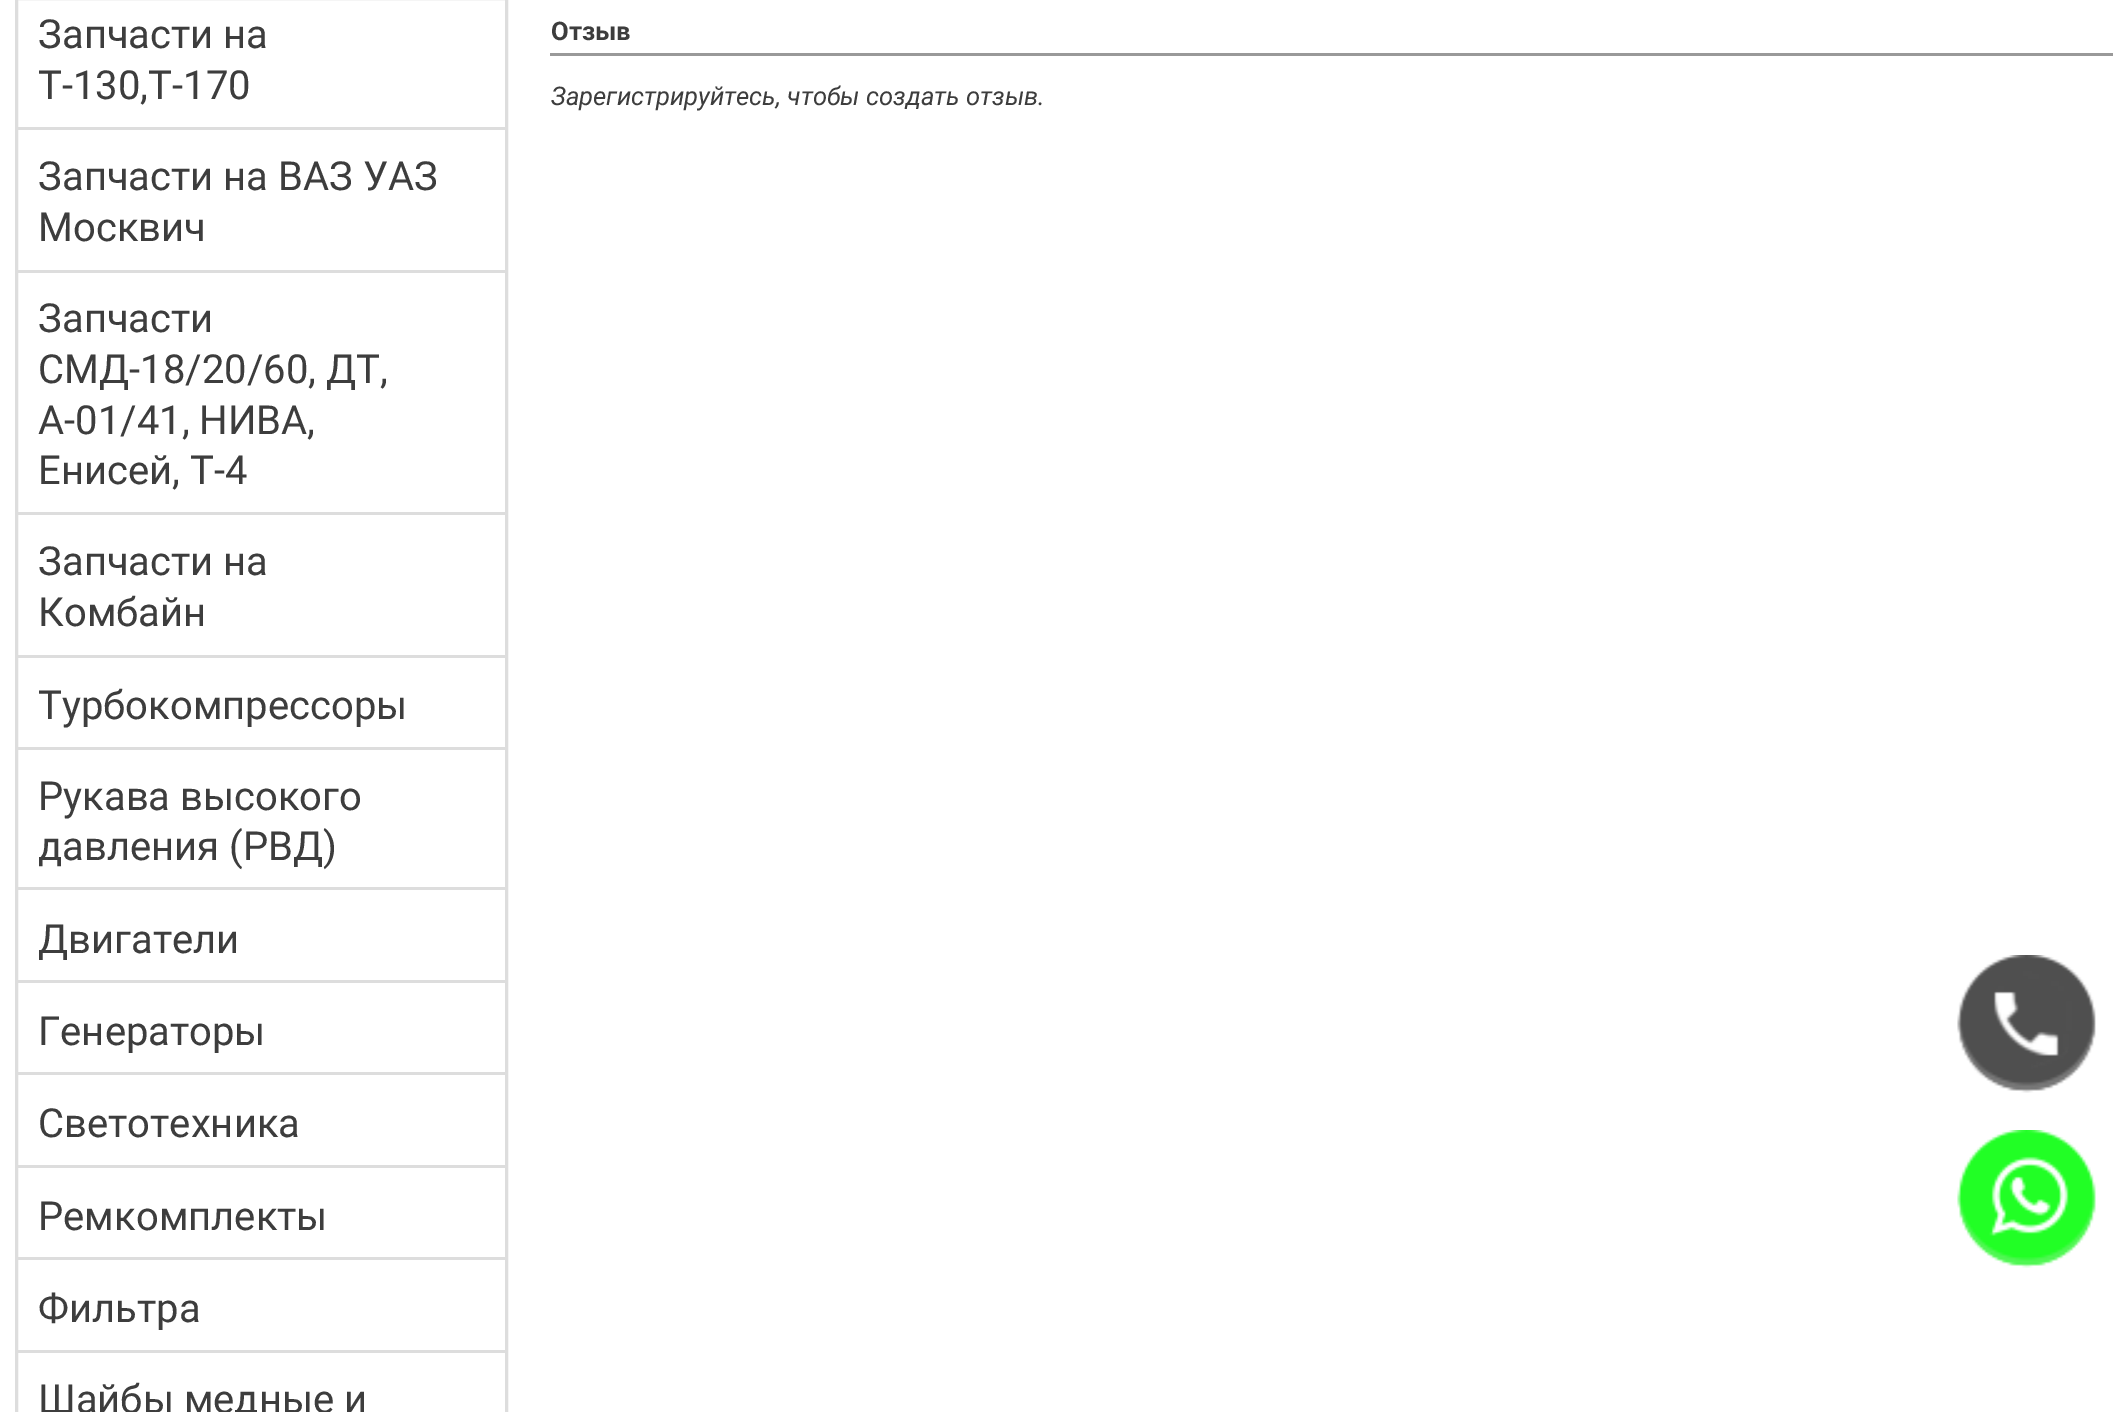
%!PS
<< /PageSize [2127 1412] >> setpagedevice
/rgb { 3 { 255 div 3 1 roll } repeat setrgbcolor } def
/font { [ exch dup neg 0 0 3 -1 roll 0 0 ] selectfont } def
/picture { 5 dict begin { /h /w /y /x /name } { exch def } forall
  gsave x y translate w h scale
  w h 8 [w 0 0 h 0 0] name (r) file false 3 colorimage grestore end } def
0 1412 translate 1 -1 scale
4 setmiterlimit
255 255 255 rgb
0 0 2127 1412 rectfill
221 221 221 rgb
3 setlinewidth
16.5 -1.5 490 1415 rectstroke
[
  [18 127 487 3 221 221 221]
  [18 270 487 3 221 221 221]
  [18 512 487 3 221 221 221]
  [18 655 487 3 221 221 221]
  [18 747 487 3 221 221 221]
  [18 887 487 3 221 221 221]
  [18 980 487 3 221 221 221]
  [18 1072 487 3 221 221 221]
  [18 1165 487 3 221 221 221]
  [18 1257 487 3 221 221 221]
  [18 1350 487 3 221 221 221]
  [550 53 1563 3 153 153 153]
] { aload pop rgb rectfill } forall
(img/1.rgb) 1957 955 139 138 picture
(img/2.rgb) 1957 1130 139 138 picture
/Roboto-Regular 40 font
61 61 61 rgb
[
  [(Запчасти на) 38 48]
  [(Т-130,Т-170) 38 99]
  [(Запчасти на ВАЗ УАЗ) 38 190]
  [(Москвич) 38 241]
  [(Запчасти) 38 332]
  [(СМД-18/20/60, ДТ,) 38 383]
  [(А-01/41, НИВА,) 38 434]
  [(Енисей, Т-4) 38 484]
  [(Запчасти на) 38 575]
  [(Комбайн) 38 626]
  [(Турбокомпрессоры) 38 719]
  [(Рукава высокого) 38 810]
  [(давления \(РВД\)) 38 860]
  [(Двигатели) 38 953]
  [(Генераторы) 38 1045]
  [(Светотехника) 38 1137]
  [(Ремкомплекты) 38 1230]
  [(Фильтра) 38 1322]
  [(Шайбы медные и) 38 1413]
] { aload pop moveto show } forall
/Roboto-Bold 25.6 font
551 40 moveto (Отзыв) show
/Roboto-Italic 25.6 font
551 105 moveto (Зарегистрируйтесь, чтобы создать отзыв.) show
showpage
